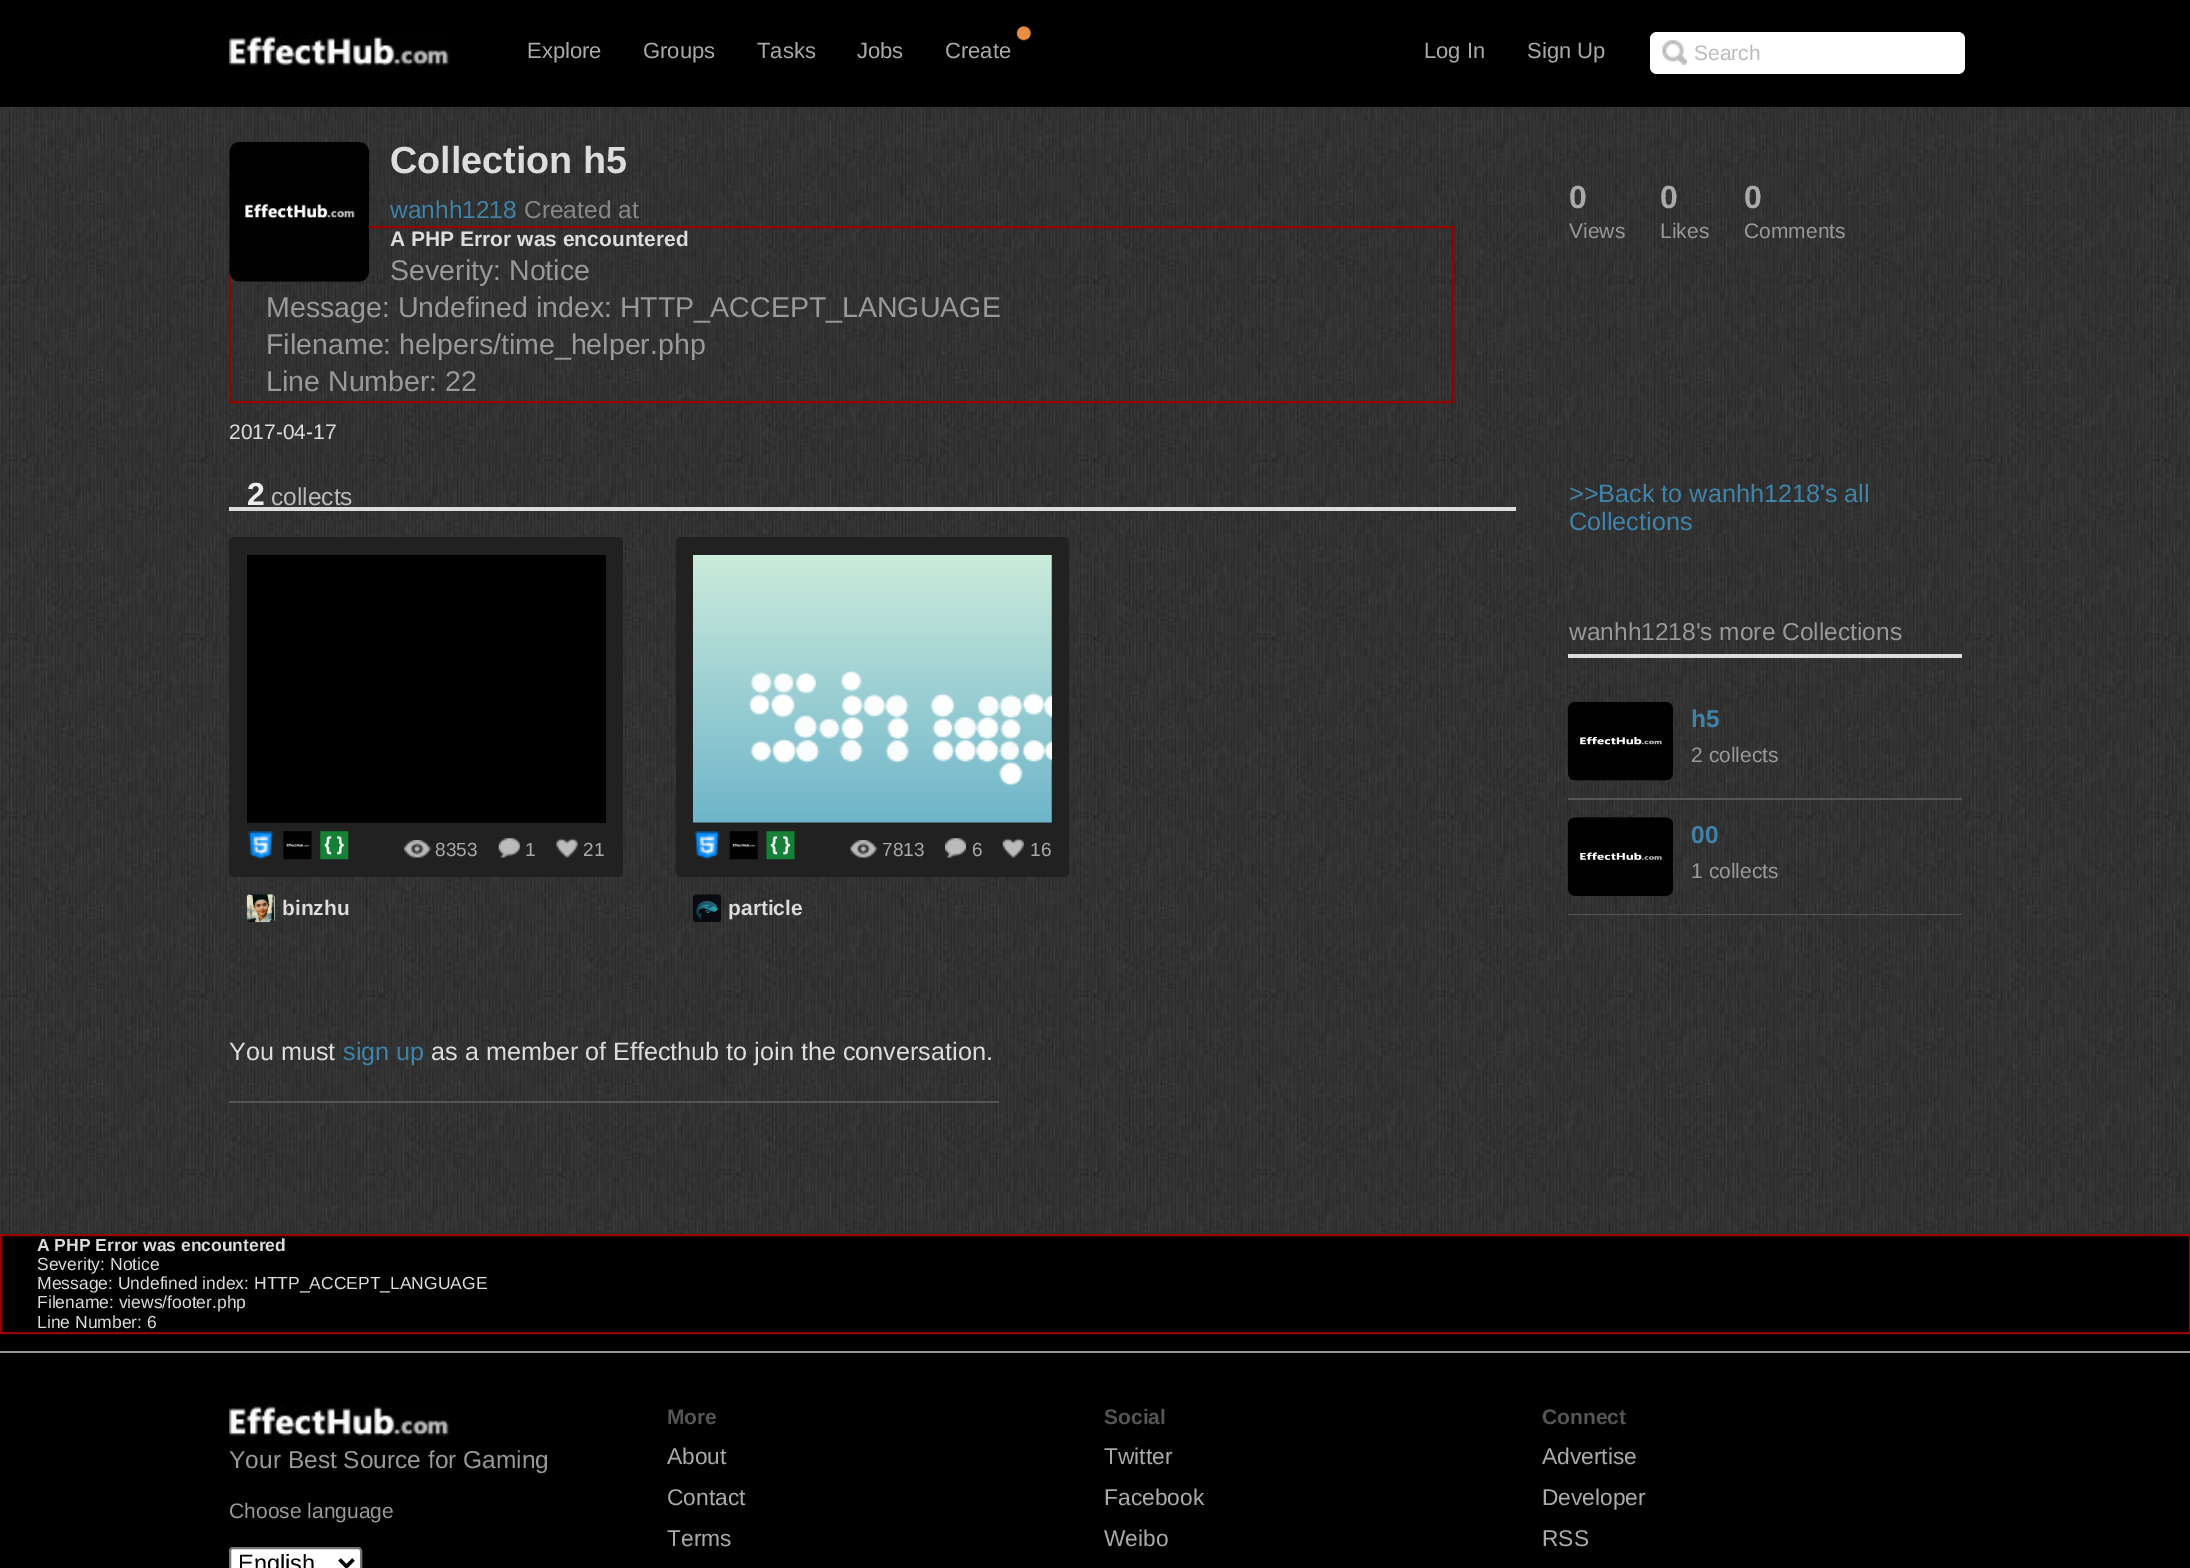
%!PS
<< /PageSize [2190 1568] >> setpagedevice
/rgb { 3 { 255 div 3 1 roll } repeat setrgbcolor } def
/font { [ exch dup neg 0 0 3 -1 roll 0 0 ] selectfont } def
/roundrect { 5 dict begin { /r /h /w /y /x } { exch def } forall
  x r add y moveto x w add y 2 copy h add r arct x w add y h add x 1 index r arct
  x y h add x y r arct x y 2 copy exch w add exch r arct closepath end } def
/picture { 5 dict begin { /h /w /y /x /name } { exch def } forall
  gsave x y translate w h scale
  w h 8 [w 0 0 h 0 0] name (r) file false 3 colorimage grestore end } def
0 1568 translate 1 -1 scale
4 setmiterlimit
0 0 0 rgb
0 0 2190 1568 rectfill
(img/1.rgb) 229 35 222 35 picture
(img/2.rgb) 1016 26 15 15 picture
255 255 255 rgb
1650 32 315 42 7 roundrect fill
(img/3.rgb) 1662 40 25 25 picture
(img/4.rgb) 0 107 2190 1127 picture
153 0 0 rgb
2 setlinewidth
230 227 1223 175 rectstroke
(img/5.rgb) 229 142 141 140 picture
221 221 221 rgb
229 507 1287 4 rectfill
33 33 33 rgb
229 537 394 340 5 roundrect fill
(img/6.rgb) 248 831 26 29 picture
(img/7.rgb) 283 831 29 29 picture
(img/8.rgb) 320 831 29 29 picture
0 0 0 rgb
247 555 359 268 rectfill
(img/9.rgb) 404 840 27 18 picture
(img/10.rgb) 498 838 22 20 picture
(img/11.rgb) 556 838 22 20 picture
(img/12.rgb) 246 894 29 29 picture
33 33 33 rgb
676 537 393 340 5 roundrect fill
(img/13.rgb) 694 831 26 29 picture
(img/14.rgb) 729 831 29 29 picture
(img/15.rgb) 766 831 29 29 picture
(img/16.rgb) 693 555 359 268 picture
(img/17.rgb) 850 840 27 18 picture
(img/18.rgb) 945 838 21 20 picture
(img/19.rgb) 1002 838 22 20 picture
(img/20.rgb) 693 894 28 28 picture
[
  [229 1101 770 2 85 85 85]
  [1568 654 394 4 221 221 221]
  [1568 798 394 2 85 85 85]
] { aload pop rgb rectfill } forall
(img/21.rgb) 1568 702 105 79 picture
1568 914 394 1 rectfill
(img/22.rgb) 1568 817 105 79 picture
153 0 0 rgb
1 1235 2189 98 rectstroke
153 153 153 rgb
0 1351 2190 2 rectfill
(img/23.rgb) 229 1405 222 35 picture
255 255 255 rgb
230 1548 131 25 3 roundrect gsave fill grestore
118 118 118 rgb
stroke
0 0 0 rgb
3.5 setlinewidth
339.5 1559.5 moveto 346.5 1566.5 lineto 353.5 1559.5 lineto stroke
/LiberationSans-Regular 22 font
170 170 170 rgb
[
  [(Explore) 527 58]
  [(Groups) 643 58]
  [(Tasks) 757 58]
  [(Jobs) 857 58]
  [(Create) 945 58]
  [(Log In) 1424 58]
  [(Sign Up) 1527 58]
] { aload pop moveto show } forall
/LiberationSans-Regular 21 font
187 187 187 rgb
1694 60 moveto (Search) show
/LiberationSans-Bold 37.75 font
221 221 221 rgb
390 173 moveto (Collection h5) show
/LiberationSans-Regular 24.5 font
64 131 169 rgb
390 218 moveto (wanhh1218) show
136 136 136 rgb
524 218 moveto (Created at) show
/LiberationSans-Bold 21 font
221 221 221 rgb
390 246 moveto (A PHP Error was encountered) show
/LiberationSans-Regular 28.55 font
153 153 153 rgb
[
  [(Severity: Notice) 390 280]
  [(Message: Undefined index: HTTP_ACCEPT_LANGUAGE) 266 317]
  [(Filename: helpers/time_helper.php) 266 354]
  [(Line Number: 22) 266 391]
] { aload pop moveto show } forall
/LiberationSans-Regular 21 font
221 221 221 rgb
229 439 moveto (2017-04-17) show
/LiberationSans-Bold 32 font
170 170 170 rgb
1569 208 moveto (0) show
/LiberationSans-Regular 21 font
153 153 153 rgb
1569 238 moveto (Views) show
/LiberationSans-Bold 32 font
170 170 170 rgb
1660 208 moveto (0) show
/LiberationSans-Regular 21 font
153 153 153 rgb
1660 238 moveto (Likes) show
/LiberationSans-Bold 32 font
170 170 170 rgb
1744 208 moveto (0) show
/LiberationSans-Regular 21 font
153 153 153 rgb
1744 238 moveto (Comments) show
/LiberationSans-Bold 32 font
238 238 238 rgb
247 505 moveto (2) show
/LiberationSans-Regular 24.5 font
187 187 187 rgb
271 505 moveto (collects) show
/LiberationSans-Regular 19 font
170 170 170 rgb
[
  [(8353) 435 856]
  [(1) 525 856]
  [(21) 583 856]
] { aload pop moveto show } forall
/LiberationSans-Bold 21 font
221 221 221 rgb
282 915 moveto (binzhu) show
/LiberationSans-Regular 19 font
170 170 170 rgb
[
  [(7813) 882 856]
  [(6) 972 856]
  [(16) 1030 856]
] { aload pop moveto show } forall
/LiberationSans-Bold 21 font
221 221 221 rgb
728 915 moveto (particle) show
/LiberationSans-Regular 25.2 font
229 1060 moveto (You must) show
64 131 169 rgb
343 1060 moveto (sign up) show
221 221 221 rgb
431 1060 moveto (as a member of Effecthub to join the conversation.) show
64 131 169 rgb
1569 502 moveto (>>Back to wanhh1218's all) show
1569 530 moveto (Collections) show
/LiberationSans-Regular 24.5 font
153 153 153 rgb
1569 640 moveto (wanhh1218's more Collections) show
/LiberationSans-Bold 24.5 font
64 131 169 rgb
1691 727 moveto (h5) show
/LiberationSans-Regular 21 font
153 153 153 rgb
1691 762 moveto (2 collects) show
/LiberationSans-Bold 24.5 font
64 131 169 rgb
1691 843 moveto (00) show
/LiberationSans-Regular 21 font
153 153 153 rgb
1691 878 moveto (1 collects) show
/LiberationSans-Bold 17.5 font
221 221 221 rgb
37 1251 moveto (A PHP Error was encountered) show
/LiberationSans-Regular 17.5 font
[
  [(Severity: Notice) 37 1270]
  [(Message: Undefined index: HTTP_ACCEPT_LANGUAGE) 37 1289]
  [(Filename: views/footer.php) 37 1308]
  [(Line Number: 6) 37 1328]
] { aload pop moveto show } forall
/LiberationSans-Regular 24.5 font
153 153 153 rgb
229 1468 moveto (Your Best Source for Gaming) show
/LiberationSans-Regular 21 font
229 1518 moveto (Choose language) show
/LiberationSans-Regular 23.5 font
0 0 0 rgb
238 1571 moveto (English) show
/LiberationSans-Bold 21 font
85 85 85 rgb
667 1424 moveto (More) show
/LiberationSans-Regular 22.75 font
170 170 170 rgb
[
  [(About) 667 1464]
  [(Contact) 667 1505]
  [(Terms) 667 1546]
] { aload pop moveto show } forall
/LiberationSans-Bold 21 font
85 85 85 rgb
1104 1424 moveto (Social) show
/LiberationSans-Regular 22.75 font
170 170 170 rgb
[
  [(Twitter) 1104 1464]
  [(Facebook) 1104 1505]
  [(Weibo) 1104 1546]
] { aload pop moveto show } forall
/LiberationSans-Bold 21 font
85 85 85 rgb
1542 1424 moveto (Connect) show
/LiberationSans-Regular 22.75 font
170 170 170 rgb
[
  [(Advertise) 1542 1464]
  [(Developer) 1542 1505]
  [(RSS) 1542 1546]
] { aload pop moveto show } forall
showpage
